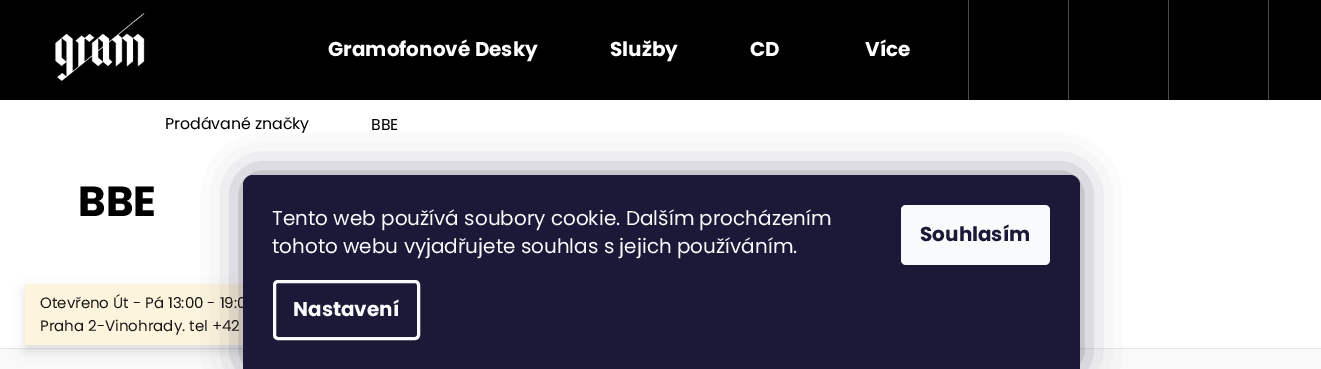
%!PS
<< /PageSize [1321 369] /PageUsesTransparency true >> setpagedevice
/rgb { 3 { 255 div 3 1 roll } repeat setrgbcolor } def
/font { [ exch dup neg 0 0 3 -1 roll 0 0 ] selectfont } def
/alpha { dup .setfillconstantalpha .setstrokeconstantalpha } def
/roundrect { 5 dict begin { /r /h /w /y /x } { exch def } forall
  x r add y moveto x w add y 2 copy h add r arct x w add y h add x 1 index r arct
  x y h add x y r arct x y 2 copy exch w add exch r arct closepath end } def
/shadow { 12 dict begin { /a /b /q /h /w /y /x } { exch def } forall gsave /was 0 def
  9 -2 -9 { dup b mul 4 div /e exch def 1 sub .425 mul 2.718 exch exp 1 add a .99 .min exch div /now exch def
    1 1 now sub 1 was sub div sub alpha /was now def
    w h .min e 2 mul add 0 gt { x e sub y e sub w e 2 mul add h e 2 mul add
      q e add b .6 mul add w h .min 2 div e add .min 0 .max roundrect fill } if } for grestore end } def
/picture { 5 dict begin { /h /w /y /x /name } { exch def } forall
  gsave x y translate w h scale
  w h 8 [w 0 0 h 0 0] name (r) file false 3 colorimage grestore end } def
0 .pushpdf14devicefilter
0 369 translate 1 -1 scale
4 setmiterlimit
255 255 255 rgb
0 0 1321 369 rectfill
0 0 0 rgb
0 0 1321 100 rectfill
(img/1.rgb) 55 13 90 68 picture
[
  [1268 0 1 100 77 77 77]
  [968 0 1 100 77 77 77]
  [1068 0 1 100 77 77 77]
  [1168 0 1 100 77 77 77]
  [0 349 1321 20 249 249 249]
  [0 348 1321 1 230 230 230]
] { aload pop rgb rectfill } forall
gsave
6 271 moveto 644 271 lineto 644 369 lineto 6 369 lineto closepath 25 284 moveto 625 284 lineto 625 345 lineto 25 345 lineto closepath eoclip newpath
0 0 0 rgb
25 290 600 61 0 6 0.14 shadow
grestore
0.9 alpha
253 243 218 rgb
25 284 218 61 rectfill
1 alpha
27 25 57 rgb
243 175 837 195 10 19 0.5 shadow
/Poppins-Bold 20 font
255 255 255 rgb
[
  [(Gramofonové Desky) 328 56]
  [(Služby) 610 56]
  [(CD) 750 56]
  [(Více) 865 56]
] { aload pop moveto show } forall
/Poppins-Regular 15.75 font
0 0 0 rgb
165 129 moveto (Prodávané značky) show
371 130 moveto (BBE) show
/Poppins-Bold 42 font
78 216 moveto (BBE) show
/Poppins-Regular 15 font
25 24 22 rgb
40 308 moveto (Otevřeno Út - Pá 13:00 - 19:0) show
40 331 moveto (Praha 2-Vinohrady. tel +42) show
26 25 55 rgb
253 175 moveto 1070 175 lineto 1075.5 175 1080 179.5 1080 185 curveto 1080 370 lineto 243 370 lineto 243 185 lineto 243 179.5 247.5 175 253 175 curveto closepath fill
/Poppins-Regular 20 font
248 250 251 rgb
272 225 moveto (Tento web používá soubory cookie. Dalším procházením) show
272 253 moveto (tohoto webu vyjadřujete souhlas s jejich používáním.) show
3 setlinewidth
274.5 281.5 144 57 3.5 roundrect stroke
/Poppins-Bold 20 font
293 316 moveto (Nastavení) show
901 205 149 60 5 roundrect fill
26 25 55 rgb
920 241 moveto (Souhlasím) show
.poppdf14devicefilter showpage
